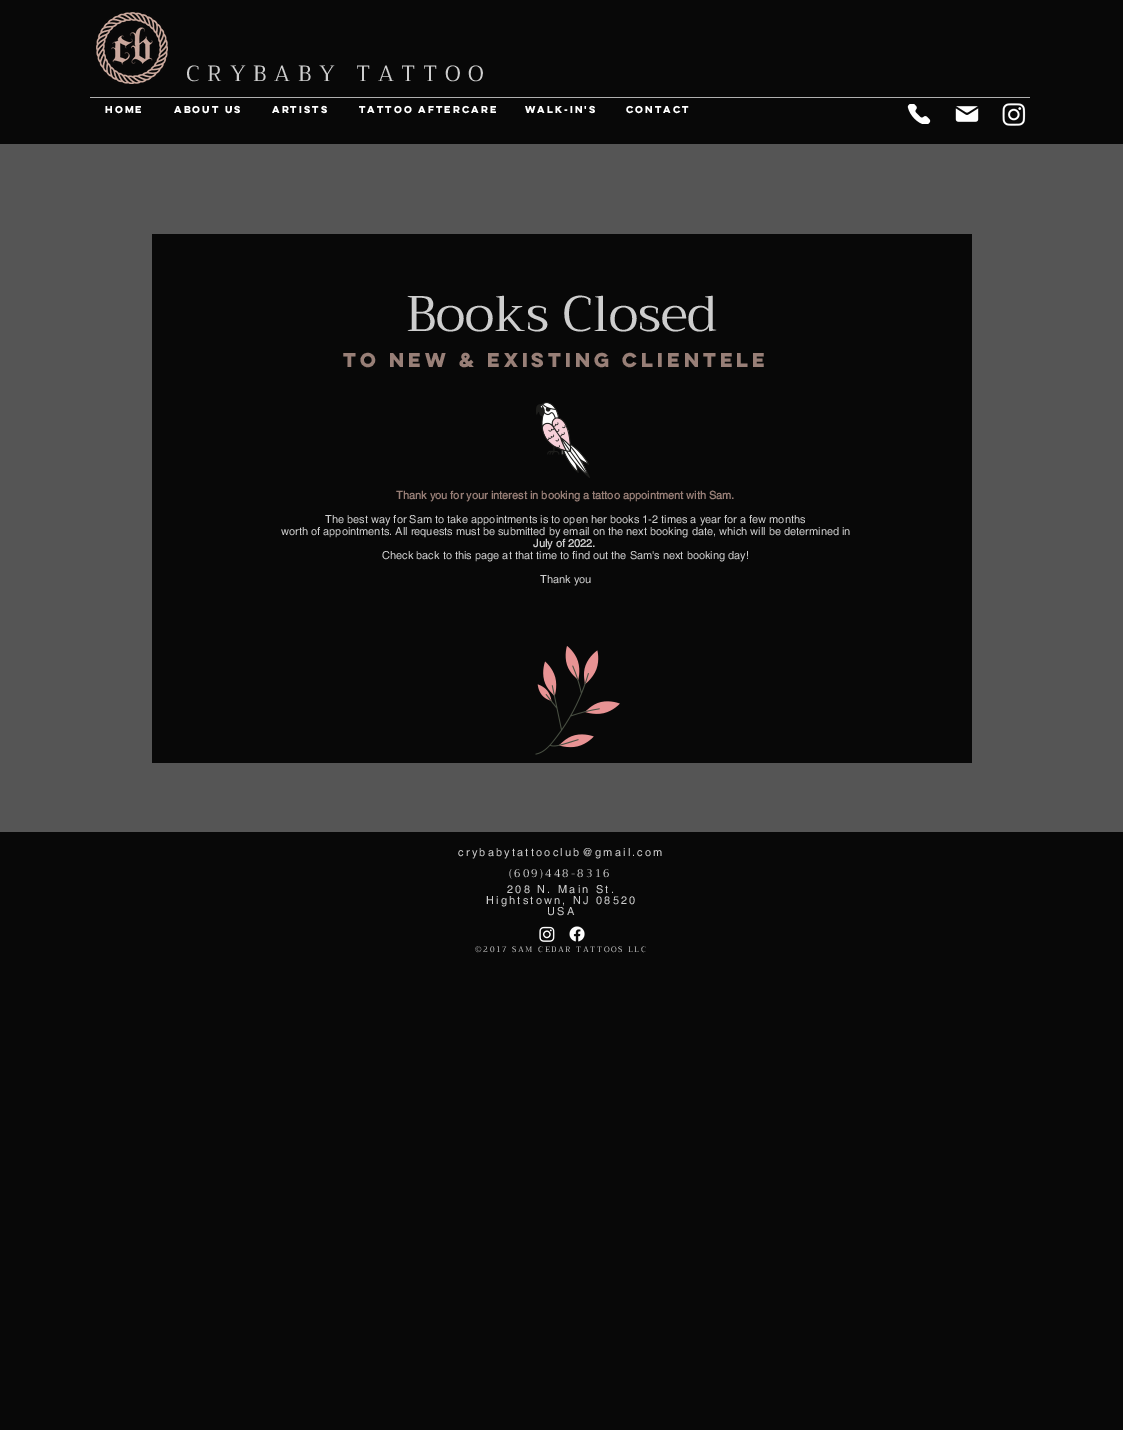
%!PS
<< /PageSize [1123 1430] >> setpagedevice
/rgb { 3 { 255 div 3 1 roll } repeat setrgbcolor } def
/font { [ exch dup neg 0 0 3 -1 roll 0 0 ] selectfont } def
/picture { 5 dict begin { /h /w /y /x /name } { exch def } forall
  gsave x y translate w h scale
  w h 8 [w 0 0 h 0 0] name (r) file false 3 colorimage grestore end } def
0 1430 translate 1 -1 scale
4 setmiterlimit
8 8 8 rgb
0 0 1123 1430 rectfill
(img/1.rgb) 96 12 72 72 picture
176 176 176 rgb
90 97 940 1 rectfill
(img/2.rgb) 907 104 24 20 picture
(img/3.rgb) 955 106 24 16 picture
(img/4.rgb) 1002 103 24 23 picture
85 85 85 rgb
0 144 1123 688 rectfill
8 8 8 rgb
152 234 820 529 rectfill
(img/5.rgb) 536 402 54 76 picture
(img/6.rgb) 535 646 85 109 picture
(img/7.rgb) 539 926 16 16 picture
(img/8.rgb) 569 926 16 16 picture
/Trirong-Regular 22 font
206 206 206 rgb
186 81 moveto 7.75 0 (CRYBABY TATTOO) ashow
/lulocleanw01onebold-Bold 9 font
255 255 255 rgb
[
  [(Home) 105 113]
  [(About Us) 174 113]
  [(Artists) 272 113]
  [(Tattoo Aftercare) 359 113]
  [(Walk-In's) 525 113]
  [(Contact) 626 113]
] { aload pop moveto show } forall
/Trirong-Regular 50 font
206 206 206 rgb
406 331 moveto (Books Closed) show
/lulocleanw01onebold-Bold 18 font
152 127 119 rgb
343 367 moveto (to new & existing CLIENTELE) show
/helvetica-Bold 11 font
396 499 moveto (Thank you for your interest in booking a tattoo appointment with Sam.) show
/helvetica-Regular 11 font
206 206 206 rgb
325 523 moveto (The best way for Sam to take appointments is to open her books 1-2 times a year for a few months) show
281 535 moveto (worth of appointments. All requests must be submitted by email on the next booking date, which will be determined in) show
/helvetica-Bold 11 font
533 547 moveto (July of 2022.) show
/helvetica-Regular 11 font
382 559 moveto (Check back to this page at that time to find out the Sam's next booking day!) show
540 583 moveto (Thank you) show
458 856 moveto 2.2 0 (crybabytattooclub@gmail.com) ashow
/Trirong-Regular 11 font
509 877 moveto 2.2 0 (\(609\)448-8316) ashow
/helvetica-Regular 11 font
507 893 moveto 2.2 0 (208 N. Main St.) ashow
486 904 moveto 2.2 0 (Hightstown, NJ 08520) ashow
547 915 moveto 2.2 0 (USA) ashow
/Trirong-Regular 8 font
475 952 moveto 1.6 0 (©2017 SAM CEDAR TATTOOS LLC) ashow
showpage
